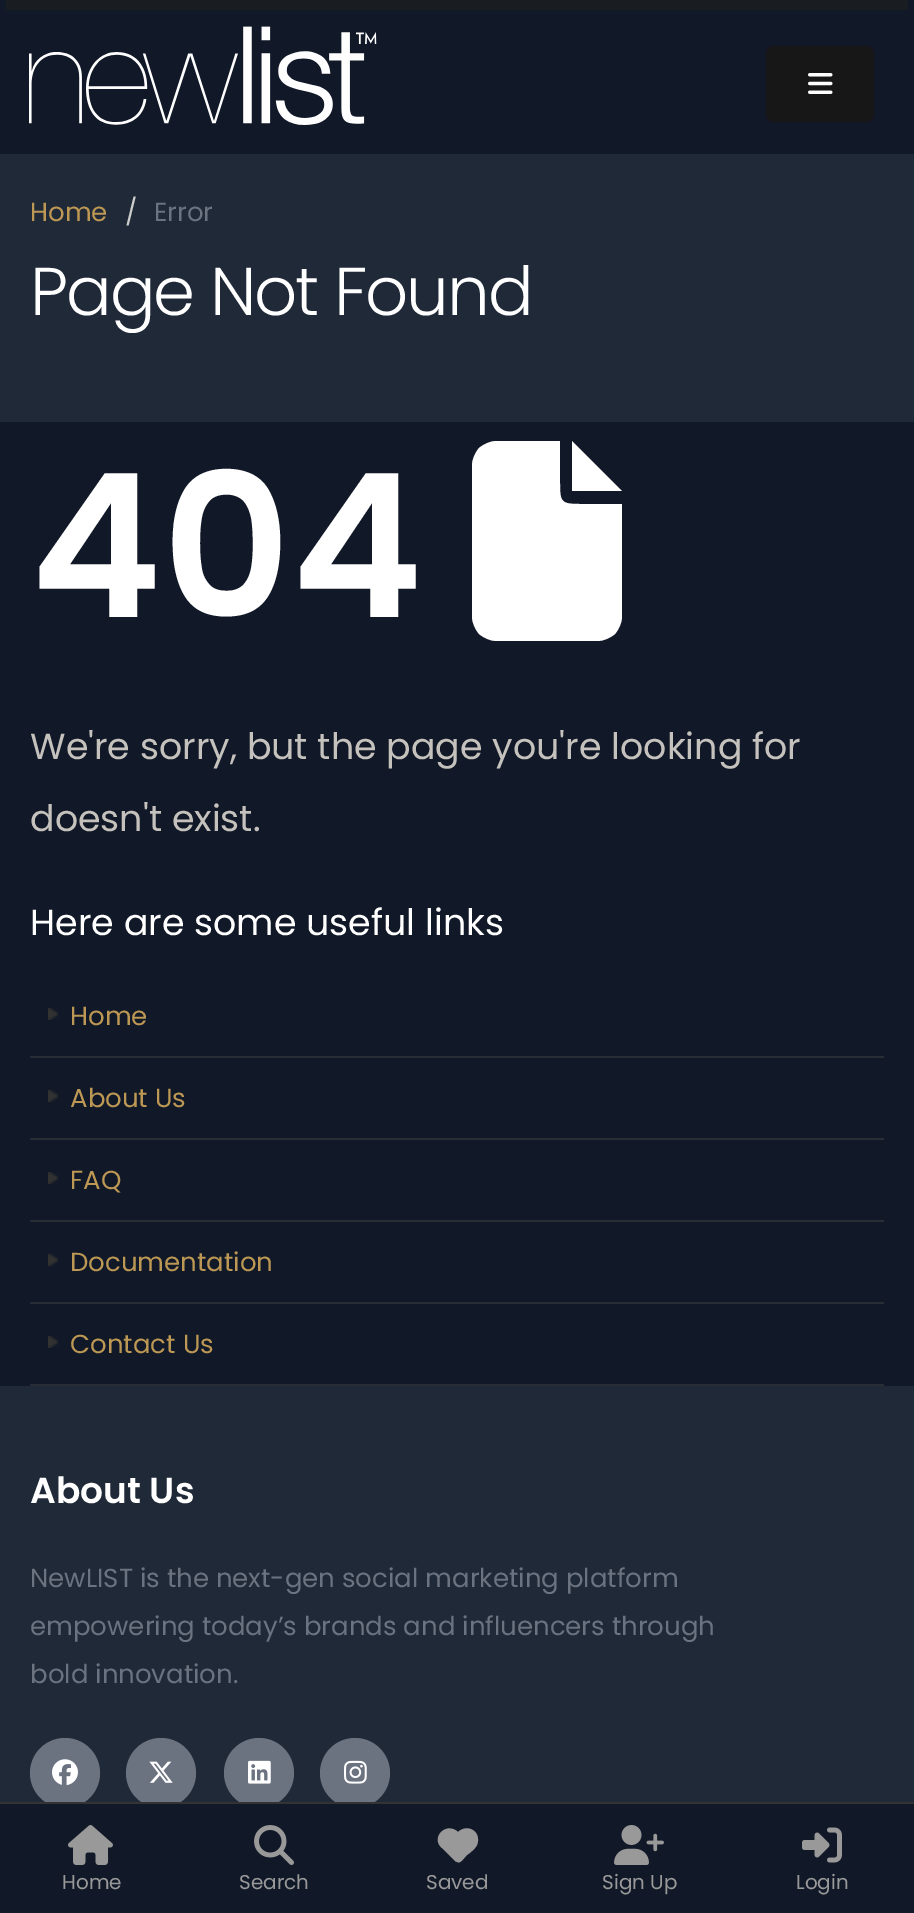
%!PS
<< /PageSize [914 1913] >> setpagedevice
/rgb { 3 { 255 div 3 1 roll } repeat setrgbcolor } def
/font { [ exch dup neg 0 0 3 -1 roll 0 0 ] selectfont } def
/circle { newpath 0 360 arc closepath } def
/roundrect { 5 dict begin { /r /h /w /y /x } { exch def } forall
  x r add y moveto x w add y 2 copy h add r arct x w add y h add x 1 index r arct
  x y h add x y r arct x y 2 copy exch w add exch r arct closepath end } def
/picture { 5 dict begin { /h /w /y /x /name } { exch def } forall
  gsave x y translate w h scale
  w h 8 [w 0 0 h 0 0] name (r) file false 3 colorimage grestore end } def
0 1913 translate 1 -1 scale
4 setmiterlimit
17 24 39 rgb
0 0 914 1913 rectfill
25 28 33 rgb
6 0 902 10 rectfill
(img/1.rgb) 29 26 348 99 picture
23 23 23 rgb
766 46 108 76 8 roundrect fill
(img/2.rgb) 808 73 25 21 picture
31 41 55 rgb
0 154 914 268 rectfill
255 255 255 rgb
472 466 moveto 472 459 475 453 479 448 curveto 484 444 490 441 497 441 curveto 560 441 lineto 560 483 lineto 560 502 561 504 580 504 curveto 622 504 lineto 622 616 lineto 622 623 619 629 615 634 curveto 610 638 604 641 597 641 curveto 497 641 lineto 490 641 484 638 479 634 curveto 475 629 472 623 472 616 curveto closepath 622 491 moveto 572 491 lineto 622 491 lineto 572 491 lineto 572 441 lineto closepath fill
(img/3.rgb) 48 1008 10 12 picture
40 45 54 rgb
30 1056 854 2 rectfill
(img/3.rgb) 48 1090 10 12 picture
30 1138 854 2 rectfill
(img/3.rgb) 48 1172 10 12 picture
30 1220 854 2 rectfill
(img/3.rgb) 48 1254 10 12 picture
30 1302 854 2 rectfill
(img/3.rgb) 48 1336 10 12 picture
30 1384 854 2 rectfill
31 41 55 rgb
0 1386 914 416 rectfill
107 114 128 rgb
65 1773 35 circle fill
(img/4.rgb) 52 1759 26 27 picture
161 1773 35 circle fill
(img/5.rgb) 149 1761 24 22 picture
259 1773 35 circle fill
(img/6.rgb) 248 1760 23 24 picture
355 1773 35 circle fill
(img/7.rgb) 344 1760 23 24 picture
17 24 39 rgb
49 1804 322 4 rectfill
51 51 51 rgb
0 1802 914 2 rectfill
(img/8.rgb) 68 1825 45 40 picture
(img/9.rgb) 254 1825 40 40 picture
153 153 153 rgb
442 1848 moveto 456 1862 lineto 442 1848 lineto 453 1859 lineto 460 1866 461 1861 467 1855 curveto 471 1852 475 1849 477 1845 curveto 482 1832 468 1823 458 1832 curveto 446 1821 430 1838 442 1848 curveto closepath fill
(img/10.rgb) 614 1825 50 40 picture
(img/11.rgb) 802 1827 40 36 picture
/Poppins-Regular 26 font
188 152 84 rgb
30 221 moveto (Home) show
204 204 204 rgb
125 221 moveto (/) show
107 114 128 rgb
154 221 moveto (Error) show
/Poppins-Light 67.5 font
255 255 255 rgb
30 315 moveto -2 0 (Page Not Found) ashow
/Poppins-SemiBold 200 font
30 617 moveto (404) show
/Poppins-Regular 36.4 font
197 194 189 rgb
30 759 moveto (We're sorry, but the page you're looking for) show
30 831 moveto (doesn't exist.) show
255 255 255 rgb
30 935 moveto (Here are some useful links) show
/Poppins-Regular 26 font
188 152 84 rgb
[
  [(Home) 70 1025]
  [(About Us) 70 1107]
  [(FAQ) 70 1189]
  [(Documentation) 70 1271]
  [(Contact Us) 70 1353]
] { aload pop moveto show } forall
/Poppins-SemiBold 36 font
255 255 255 rgb
30 1503 moveto (About Us) show
/Poppins-Regular 26 font
107 114 128 rgb
[
  [(NewLIST is the next-gen social marketing platform) 30 1587]
  [(empowering today’s brands and influencers through) 30 1635]
  [(bold innovation.) 30 1683]
] { aload pop moveto show } forall
/Poppins-Regular 20 font
153 153 153 rgb
[
  [(Home) 62 1889]
  [(Search) 239 1889]
  [(Saved) 426 1889]
  [(Sign Up) 602 1889]
  [(Login) 796 1889]
] { aload pop moveto show } forall
showpage
